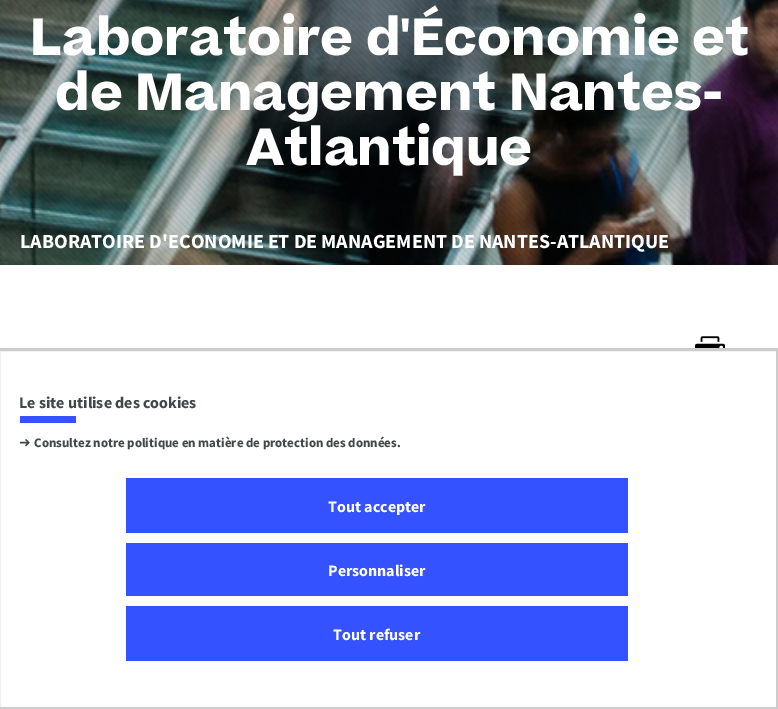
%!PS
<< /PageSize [778 709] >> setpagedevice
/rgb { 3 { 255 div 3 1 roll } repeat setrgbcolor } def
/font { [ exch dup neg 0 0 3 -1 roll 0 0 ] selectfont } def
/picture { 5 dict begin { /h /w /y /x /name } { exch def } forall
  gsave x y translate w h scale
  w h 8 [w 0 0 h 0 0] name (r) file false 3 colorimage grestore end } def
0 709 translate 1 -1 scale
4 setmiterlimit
255 255 255 rgb
0 0 778 709 rectfill
(img/1.rgb) 0 0 778 265 picture
(img/2.rgb) 0 0 778 265 picture
(img/3.rgb) 695 336 30 12 picture
204 204 204 rgb
3 setlinewidth
-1.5 349.5 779 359 rectstroke
[
  [20 416 56 7 52 82 255]
  [126 478 502 55 52 82 255]
  [126 543 502 53 52 82 255]
  [126 606 502 55 52 82 255]
] { aload pop rgb rectfill } forall
/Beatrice-Bold 50 font
255 255 255 rgb
[
  [(Laboratoire d'Économie et) 30 55]
  [(de Management Nantes-) 55 110]
  [(Atlantique) 246 165]
] { aload pop moveto show } forall
/SourceSansPro-Bold 20 font
20 248 moveto (LABORATOIRE D'ECONOMIE ET DE MANAGEMENT DE NANTES-ATLANTIQUE) show
/SourceSansPro-Bold 16 font
64 72 73 rgb
19 408 moveto (Le site utilise des cookies) show
/DejaVuSans-Regular 14 font
19 447 moveto (➜) show
/SourceSansPro-Bold 12.95 font
34 447 moveto (Consultez notre politique en matière de protection des données.) show
/SourceSansPro-Bold 16 font
255 255 255 rgb
[
  [(Tout accepter) 328 512]
  [(Personnaliser) 328 576]
  [(Tout refuser) 333 640]
] { aload pop moveto show } forall
showpage
